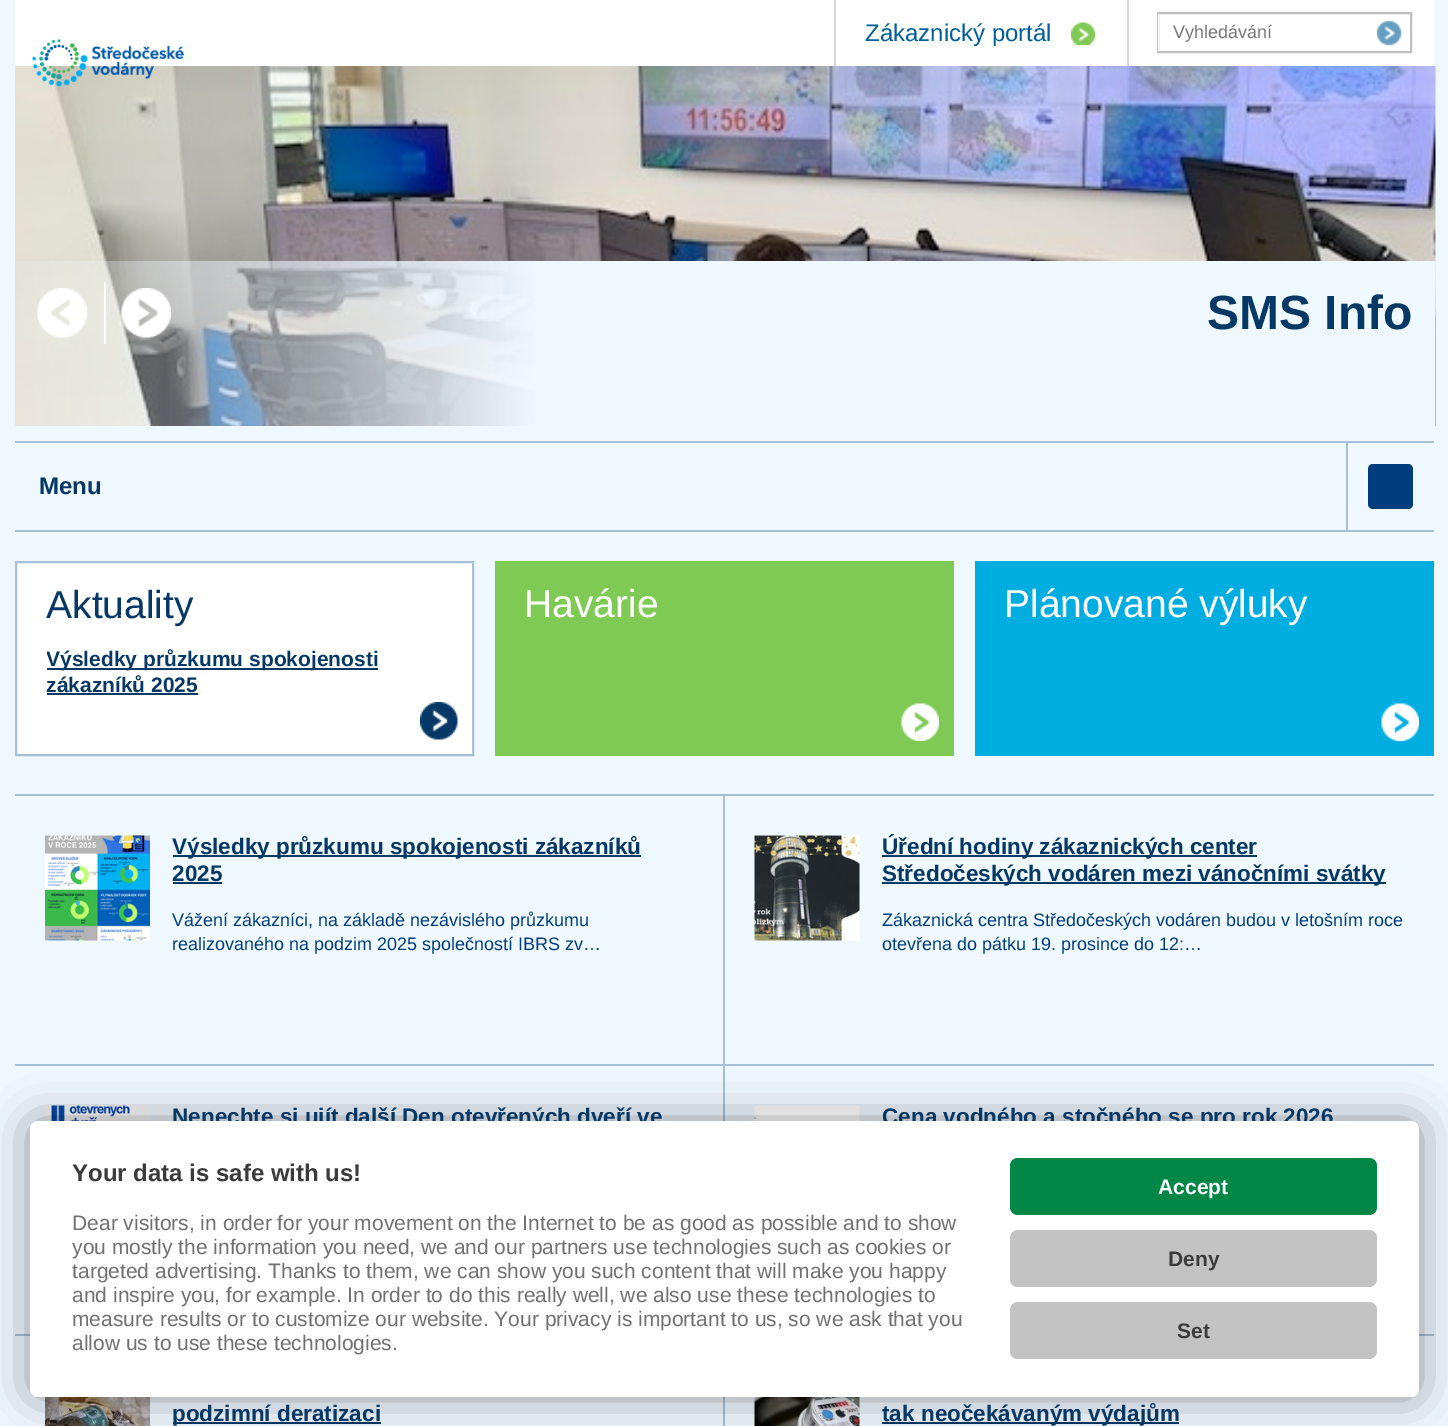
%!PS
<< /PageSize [1448 1426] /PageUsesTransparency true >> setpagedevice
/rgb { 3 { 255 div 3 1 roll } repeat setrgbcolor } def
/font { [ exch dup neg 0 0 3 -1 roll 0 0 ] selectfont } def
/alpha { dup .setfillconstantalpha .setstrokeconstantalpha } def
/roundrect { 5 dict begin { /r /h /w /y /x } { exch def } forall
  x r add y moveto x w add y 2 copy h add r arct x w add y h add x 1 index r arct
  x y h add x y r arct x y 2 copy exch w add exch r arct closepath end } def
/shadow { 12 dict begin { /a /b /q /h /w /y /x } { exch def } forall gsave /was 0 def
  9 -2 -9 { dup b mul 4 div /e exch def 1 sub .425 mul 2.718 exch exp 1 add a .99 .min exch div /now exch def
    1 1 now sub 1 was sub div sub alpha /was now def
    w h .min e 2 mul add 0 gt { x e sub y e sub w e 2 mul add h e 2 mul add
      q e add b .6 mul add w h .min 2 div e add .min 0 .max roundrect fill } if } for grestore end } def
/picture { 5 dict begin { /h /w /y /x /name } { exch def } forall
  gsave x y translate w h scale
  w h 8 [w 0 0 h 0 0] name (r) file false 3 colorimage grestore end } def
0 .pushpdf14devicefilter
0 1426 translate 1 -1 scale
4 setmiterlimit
240 248 255 rgb
0 0 1448 1426 rectfill
255 255 255 rgb
15 0 1419 66 rectfill
214 214 214 rgb
834 0 2 66 rectfill
(img/1.rgb) 1071 22 24 23 picture
1127 0 2 66 rectfill
192 192 192 rgb
2 setlinewidth
1158 13 253 39 rectstroke
255 255 255 rgb
1158 14 1 37 rectfill
(img/2.rgb) 1376 20 26 26 picture
(img/6.rgb) 15 66 1421 360 picture
(img/3.rgb) 32 39 152 48 picture
(img/7.rgb) 15 261 1421 165 picture
104 282 2 62 rectfill
(img/4.rgb) 37 288 50 50 picture
(img/5.rgb) 121 288 50 50 picture
[
  [15 441 1419 2 168 192 215]
  [15 530 1419 2 168 192 215]
  [1346 443 2 87 168 192 215]
] { aload pop rgb rectfill } forall
0 61 127 rgb
1368 464 45 45 5 roundrect fill
255 255 255 rgb
16 562 moveto 473 562 lineto 473 755 lineto 16 755 lineto closepath gsave fill grestore
168 192 215 rgb
stroke
5 56 101 rgb
47 668 331 2 rectfill
47 693 151 2 rectfill
(img/8.rgb) 420 702 38 38 picture
127 201 85 rgb
495 561 459 195 rectfill
(img/9.rgb) 901 703 38 38 picture
0 173 224 rgb
975 561 459 195 rectfill
(img/10.rgb) 1381 703 38 38 picture
[
  [15 794 1419 2 168 192 215]
  [723 795 2 270 168 192 215]
  [15 1064 1419 2 168 192 215]
] { aload pop rgb rectfill } forall
(img/11.rgb) 45 835 105 106 picture
5 56 101 rgb
173 855 468 2 rectfill
173 882 49 2 rectfill
(img/12.rgb) 754 835 106 106 picture
[
  [882 855 375 2 5 56 101]
  [882 882 504 2 5 56 101]
  [723 1065 2 56 168 192 215]
  [15 1334 15 2 168 192 215]
] { aload pop rgb rectfill } forall
(img/13.rgb) 45 1105 105 16 picture
1419 1334 15 2 rectfill
(img/14.rgb) 754 1105 106 16 picture
723 1397 2 29 rectfill
(img/15.rgb) 45 1397 105 29 picture
5 56 101 rgb
173 1422 208 2 rectfill
(img/16.rgb) 754 1397 106 29 picture
882 1422 297 2 rectfill
0 0 0 rgb
30 1121 1389 276 8 22.5 0.4 shadow
/LiberationSans-Regular 24 font
0 95 152 rgb
865 41 moveto (Zákaznický portál) show
/LiberationSans-Regular 18 font
119 119 119 rgb
1173 38 moveto (Vyhledávání) show
/LiberationSans-Bold 48 font
5 56 101 rgb
1207 329 moveto (SMS Info) show
/LiberationSans-Bold 24 font
39 494 moveto (Menu) show
/LiberationSans-Regular 39 font
46 618 moveto (Aktuality) show
gsave
47 647 337 90 rectclip
/LiberationSans-Bold 21 font
46 666 moveto (Výsledky průzkumu spokojenosti) show
grestore
/LiberationSans-Bold 21 font
46 692 moveto (zákazníků 2025) show
/LiberationSans-Regular 39 font
255 255 255 rgb
524 617 moveto (Havárie) show
1004 617 moveto (Plánované výluky) show
/LiberationSans-Bold 22.5 font
5 56 101 rgb
172 854 moveto (Výsledky průzkumu spokojenosti zákazníků) show
172 881 moveto (2025) show
/LiberationSans-Regular 18 font
0 61 127 rgb
172 926 moveto (Vážení zákazníci, na základě nezávislého průzkumu) show
172 950 moveto (realizovaného na podzim 2025 společností IBRS zv…) show
/LiberationSans-Bold 22.5 font
5 56 101 rgb
882 854 moveto (Úřední hodiny zákaznických center) show
882 881 moveto (Středočeských vodáren mezi vánočními svátky) show
/LiberationSans-Regular 18 font
0 61 127 rgb
882 926 moveto (Zákaznická centra Středočeských vodáren budou v letošním roce) show
882 950 moveto (otevřena do pátku 19. prosince do 12:…) show
/LiberationSans-Bold 22.5 font
5 56 101 rgb
[
  [(Nenechte si ujít další Den otevřených dveří ve) 172 1124]
  [(Cena vodného a stočného se pro rok 2026) 882 1124]
  [(podzimní deratizaci) 172 1421]
  [(tak neočekávaným výdajům) 882 1421]
] { aload pop moveto show } forall
255 255 255 rgb
30 1121 1389 276 8 roundrect fill
/LiberationSans-Bold 24 font
59 59 59 rgb
72 1181 moveto (Your data is safe with us!) show
/LiberationSans-Regular 21 font
112 112 112 rgb
[
  [(Dear visitors, in order for your movement on the Internet to be as good as possible and to show) 72 1230]
  [(you mostly the information you need, we and our partners use technologies such as cookies or) 72 1254]
  [(targeted advertising. Thanks to them, we can show you such content that will make you happy) 72 1278]
  [(and inspire you, for example. In order to do this really well, we also use these technologies to) 72 1302]
  [(measure results or to customize our website. Your privacy is important to us, so we ask that you) 72 1326]
  [(allow us to use these technologies.) 72 1350]
] { aload pop moveto show } forall
0 135 69 rgb
1010 1158 367 57 8 roundrect fill
/LiberationSans-Bold 21 font
255 255 255 rgb
1158 1194 moveto (Accept) show
195 195 195 rgb
1010 1230 367 57 8 roundrect fill
59 59 59 rgb
1168 1266 moveto (Deny) show
195 195 195 rgb
1010 1302 367 57 8 roundrect fill
59 59 59 rgb
1177 1338 moveto (Set) show
.poppdf14devicefilter showpage
